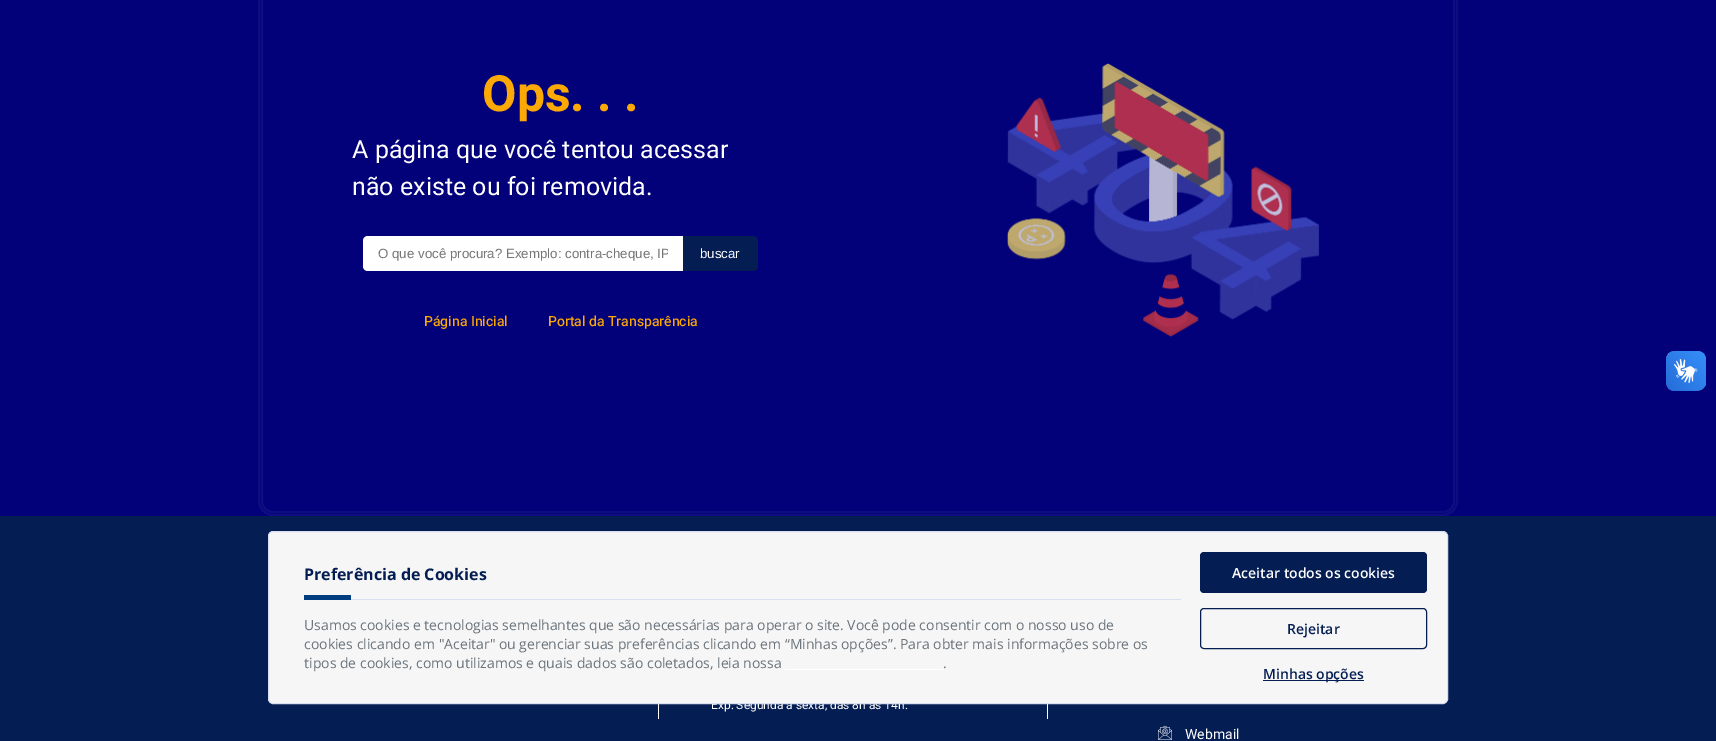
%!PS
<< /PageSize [1716 741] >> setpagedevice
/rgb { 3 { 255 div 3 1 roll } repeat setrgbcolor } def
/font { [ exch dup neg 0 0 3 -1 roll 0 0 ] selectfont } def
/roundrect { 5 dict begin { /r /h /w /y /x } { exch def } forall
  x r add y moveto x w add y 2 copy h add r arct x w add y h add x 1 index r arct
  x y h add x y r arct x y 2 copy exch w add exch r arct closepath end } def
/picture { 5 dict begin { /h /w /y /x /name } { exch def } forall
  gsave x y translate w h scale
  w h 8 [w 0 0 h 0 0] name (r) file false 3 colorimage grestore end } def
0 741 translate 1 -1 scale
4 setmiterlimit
2 1 122 rgb
0 0 1716 741 rectfill
15 14 129 rgb
2 setlinewidth
259 -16 1198 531 14 roundrect stroke
262 -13 1192 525 11 roundrect stroke
255 255 255 rgb
368 236 moveto 683 236 lineto 683 271 lineto 368 271 lineto 365 271 363 269 363 266 curveto 363 241 lineto 363 238 365 236 368 236 curveto closepath fill
4 29 83 rgb
683 236 moveto 753 236 lineto 756 236 758 238 758 241 curveto 758 266 lineto 758 269 756 271 753 271 curveto 683 271 lineto closepath fill
(img/1.rgb) 1007 63 313 274 picture
(img/2.rgb) 1666 351 40 40 picture
(img/3.rgb) 1666 351 40 40 picture
[
  [0 516 1716 225 4 29 83]
  [1047 704 1 15 255 255 255]
  [658 704 1 15 255 255 255]
] { aload pop rgb rectfill } forall
(img/4.rgb) 1158 725 14 15 picture
/Heebo-Bold 50 font
252 168 5 rgb
482 111 moveto (Ops. . .) show
/Heebo-Regular 25 font
255 255 255 rgb
352 158 moveto (A página que você tentou acessar) show
352 195 moveto (não existe ou foi removida.) show
gsave
378 246 290 15 rectclip
/LiberationSans-Regular 13.3 font
117 117 117 rgb
378 258 moveto (O que você procura? Exemplo: contra-cheque, IP) show
grestore
/LiberationSans-Regular 13.3 font
700 258 moveto (buscar) show
/Heebo-Medium 14 font
252 168 5 rgb
424 326 moveto (Página Inicial) show
548 326 moveto (Portal da Transparência) show
/Roboto-Regular 12 font
255 255 255 rgb
711 709 moveto (Exp: Segunda a sexta, das 8h às 14h.) show
246 246 246 rgb
268.5 531.5 1179 172 4.5 roundrect gsave fill grestore
217 223 240 rgb
1 setlinewidth
stroke
4 29 83 rgb
1263 680 101 1 rectfill
/OpenSans-SemiBold 14 font
1263 679 moveto (Minhas opções) show
1200.5 608.5 226 40 3.5 roundrect stroke
1287 634 moveto (Rejeitar) show
1200 552 227 41 4 roundrect fill
255 255 255 rgb
1232 578 moveto (Aceitar todos os cookies) show
/OpenSans-Regular 14 font
107 116 124 rgb
943 668 moveto (.) show
255 255 255 rgb
785 669 158 1 rectfill
107 116 124 rgb
[
  [(tipos de cookies, como utilizamos e quais dados são coletados, leia nossa) 304 668]
  [(cookies clicando em "Aceitar" ou gerenciar suas preferências clicando em “Minhas opções”. Para obter mais informações sobre os) 304 649]
  [(Usamos cookies e tecnologias semelhantes que são necessárias para operar o site. Você pode consentir com o nosso uso de) 304 630]
] { aload pop moveto show } forall
217 223 240 rgb
351 599 830 1 rectfill
1 62 127 rgb
304 595 47 5 rectfill
/OpenSans-Bold 16 font
4 29 83 rgb
304 580 moveto (Preferência de Cookies) show
/Roboto-Regular 14 font
255 255 255 rgb
1185 739 moveto (Webmail) show
showpage
